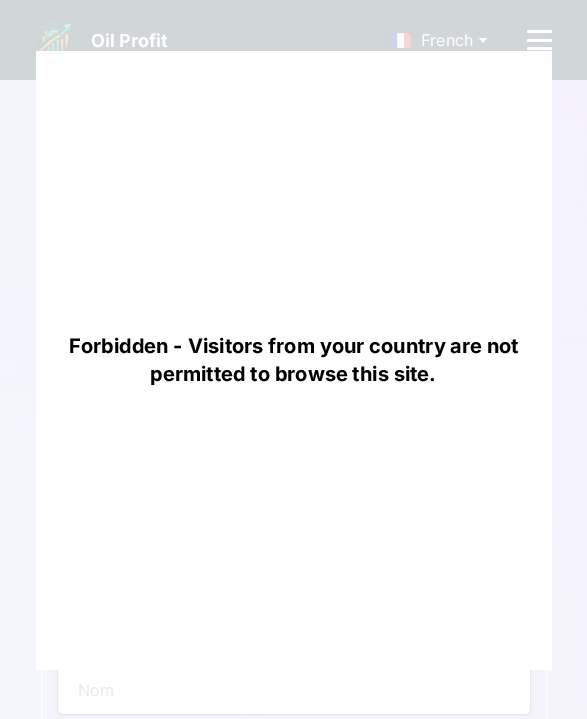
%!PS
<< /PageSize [587 719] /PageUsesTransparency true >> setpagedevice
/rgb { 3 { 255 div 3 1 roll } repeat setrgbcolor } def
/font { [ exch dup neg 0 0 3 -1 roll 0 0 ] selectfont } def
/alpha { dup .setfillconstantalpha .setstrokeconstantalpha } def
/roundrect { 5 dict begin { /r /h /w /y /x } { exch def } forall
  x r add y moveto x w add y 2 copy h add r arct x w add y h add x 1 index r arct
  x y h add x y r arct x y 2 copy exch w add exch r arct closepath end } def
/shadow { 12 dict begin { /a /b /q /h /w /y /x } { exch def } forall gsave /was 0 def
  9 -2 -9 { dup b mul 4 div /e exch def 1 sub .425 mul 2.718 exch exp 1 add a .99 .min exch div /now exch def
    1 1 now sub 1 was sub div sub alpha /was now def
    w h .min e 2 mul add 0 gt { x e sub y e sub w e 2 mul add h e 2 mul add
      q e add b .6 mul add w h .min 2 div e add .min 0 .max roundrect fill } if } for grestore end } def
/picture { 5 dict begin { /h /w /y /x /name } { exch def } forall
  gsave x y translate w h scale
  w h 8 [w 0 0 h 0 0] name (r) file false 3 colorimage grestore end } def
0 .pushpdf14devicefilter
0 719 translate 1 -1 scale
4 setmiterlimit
255 255 255 rgb
0 0 587 719 rectfill
209 214 216 rgb
0 0 587 80 rectfill
(img/1.rgb) 37 22 35 29 picture
(img/2.rgb) 390 33 21 15 picture
255 255 255 rgb
479 38 moveto 487 38 lineto 483 43 lineto closepath fill
527 30 25 3 1.5 roundrect fill
527 39 25 3 1.5 roundrect fill
527 47 25 3 1.5 roundrect fill
(img/3.rgb) 0 80 587 639 picture
41.5 509.5 505 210 rectstroke
204 204 204 rgb
60 669 468 43 2 6 0.25 shadow
255 255 255 rgb
57.5 666.5 473 48 4.5 roundrect gsave fill grestore
230 232 233 rgb
stroke
255 255 255 rgb
36 51 516 619 rectfill
/Inter-Bold 18 font
91 47 moveto (Oil Profit) show
/Inter-Regular 16 font
421 46 moveto (French) show
/Inter-Bold 20 font
0 0 0 rgb
69 353 moveto (Forbidden - Visitors from your country are not) show
150 381 moveto (permitted to browse this site.) show
/Inter-Light 16 font
227 227 227 rgb
78 696 moveto (Nom) show
.poppdf14devicefilter showpage
